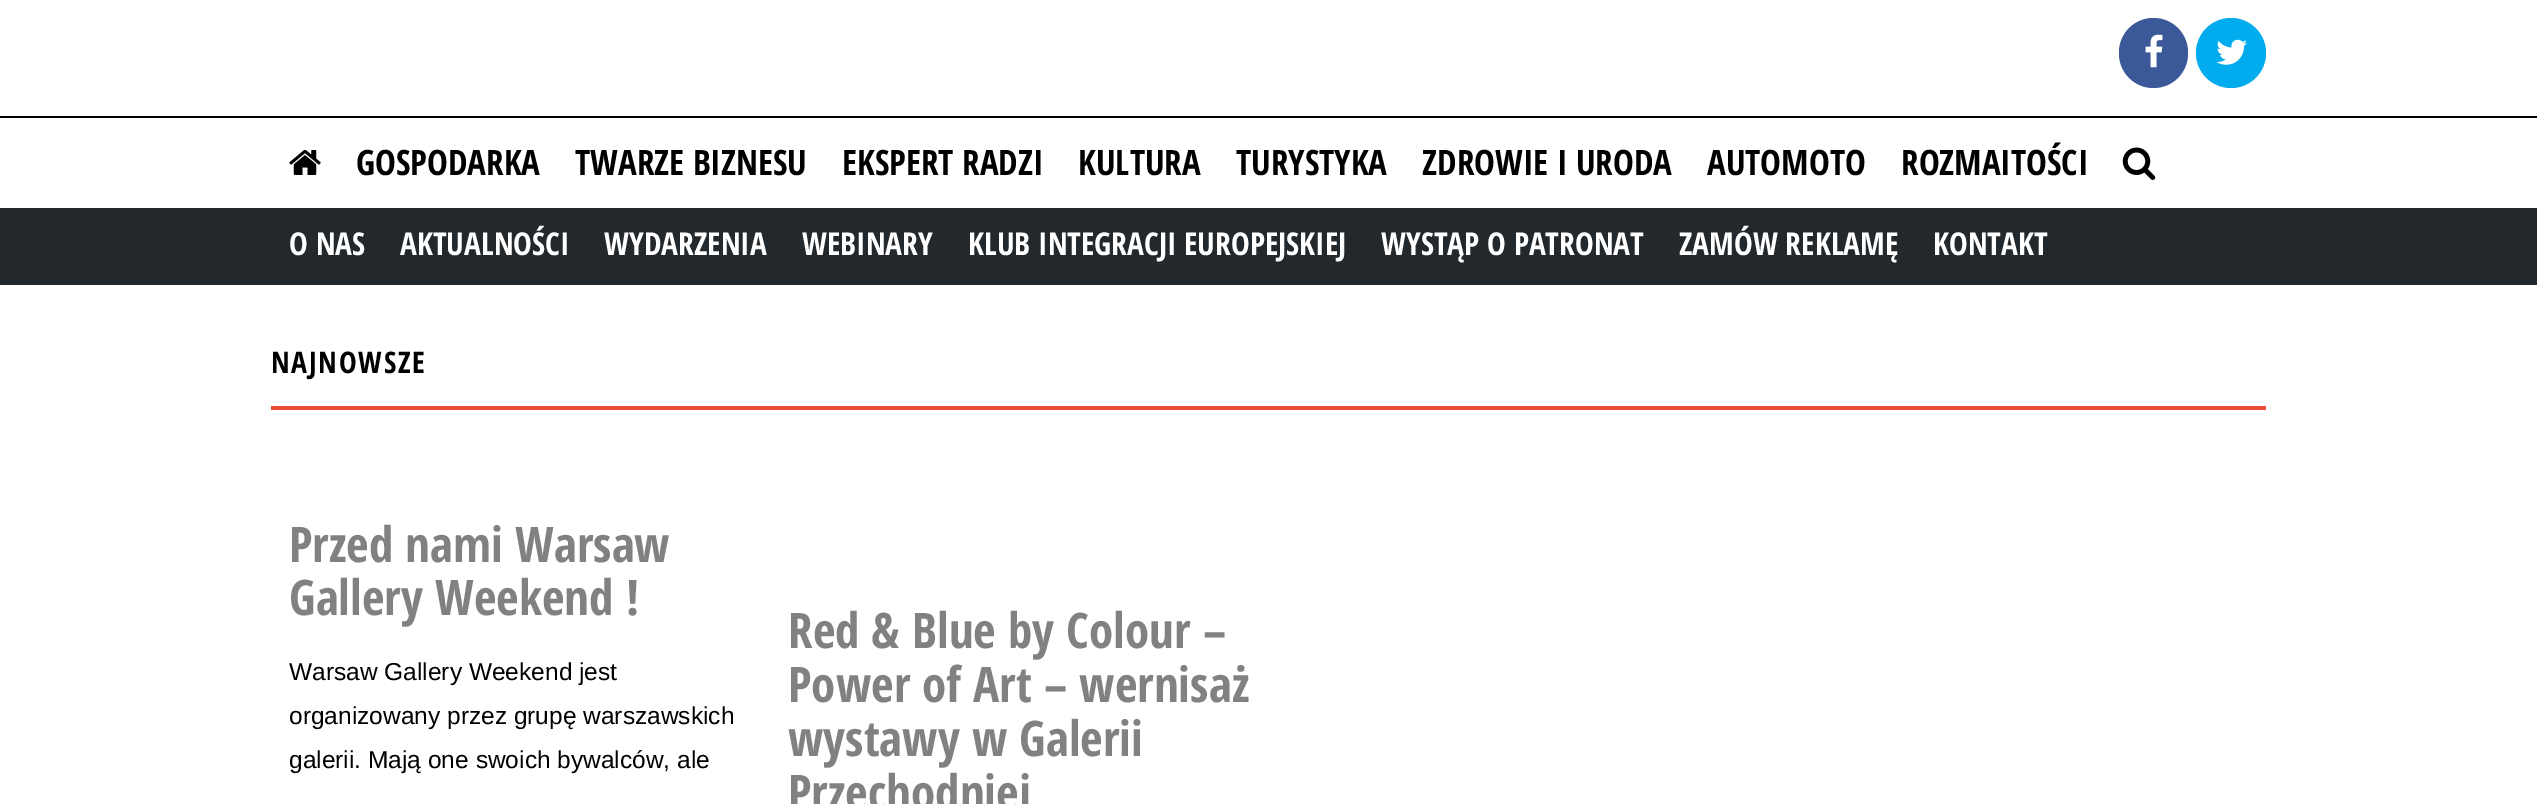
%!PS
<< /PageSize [2537 804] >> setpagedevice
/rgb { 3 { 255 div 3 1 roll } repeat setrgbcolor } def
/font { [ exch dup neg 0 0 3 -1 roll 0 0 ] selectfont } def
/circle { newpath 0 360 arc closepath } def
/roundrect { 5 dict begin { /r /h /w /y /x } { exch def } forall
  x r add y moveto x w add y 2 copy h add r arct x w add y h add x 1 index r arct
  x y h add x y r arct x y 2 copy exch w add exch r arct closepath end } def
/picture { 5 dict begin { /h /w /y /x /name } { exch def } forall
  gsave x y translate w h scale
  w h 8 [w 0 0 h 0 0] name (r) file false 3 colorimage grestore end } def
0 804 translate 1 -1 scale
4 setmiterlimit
255 255 255 rgb
0 0 2537 804 rectfill
59 89 152 rgb
2119 18 69 70 34.5 roundrect fill
(img/1.rgb) 2145 34 18 34 picture
0 172 237 rgb
2231 53 35 circle fill
(img/2.rgb) 2216 39 31 26 picture
0 0 0 rgb
0 116 2537 2 rectfill
(img/3.rgb) 289 150 32 25 picture
(img/4.rgb) 2122 147 34 33 picture
35 40 45 rgb
0 208 2537 77 rectfill
231 76 60 rgb
271 406 1995 4 rectfill
/OpenSansCondensed-Bold 35 font
0 0 0 rgb
[
  [(GOSPODARKA) 356 175]
  [(TWARZE BIZNESU) 575 175]
  [(EKSPERT RADZI) 842 175]
  [(KULTURA) 1078 175]
  [(TURYSTYKA) 1236 175]
  [(ZDROWIE I URODA) 1422 175]
  [(AUTOMOTO) 1707 175]
  [(ROZMAITOŚCI) 1901 175]
] { aload pop moveto show } forall
/OpenSansCondensed-Bold 31.5 font
255 255 255 rgb
[
  [(O NAS) 289 255]
  [(AKTUALNOŚCI) 400 255]
  [(WYDARZENIA) 604 255]
  [(WEBINARY) 802 255]
  [(KLUB INTEGRACJI EUROPEJSKIEJ) 968 255]
  [(WYSTĄP O PATRONAT) 1381 255]
  [(ZAMÓW REKLAMĘ) 1679 255]
  [(KONTAKT) 1933 255]
] { aload pop moveto show } forall
/OpenSansCondensed-Bold 29.75 font
0 0 0 rgb
271 373 moveto 1.75 0 (NAJNOWSZE) ashow
/OpenSansCondensed-Bold 49 font
129 129 129 rgb
289 562 moveto (Przed nami Warsaw) show
289 615 moveto (Gallery Weekend !) show
/LiberationSans-Regular 24.5 font
0 0 0 rgb
[
  [(Warsaw Gallery Weekend jest) 289 680]
  [(organizowany przez grupę warszawskich) 289 724]
  [(galerii. Mają one swoich bywalców, ale) 289 768]
] { aload pop moveto show } forall
/OpenSansCondensed-Bold 49 font
129 129 129 rgb
[
  [(Red & Blue by Colour –) 788 648]
  [(Power of Art – wernisaż) 788 702]
  [(wystawy w Galerii) 788 756]
  [(Przechodniej) 788 810]
] { aload pop moveto show } forall
showpage
